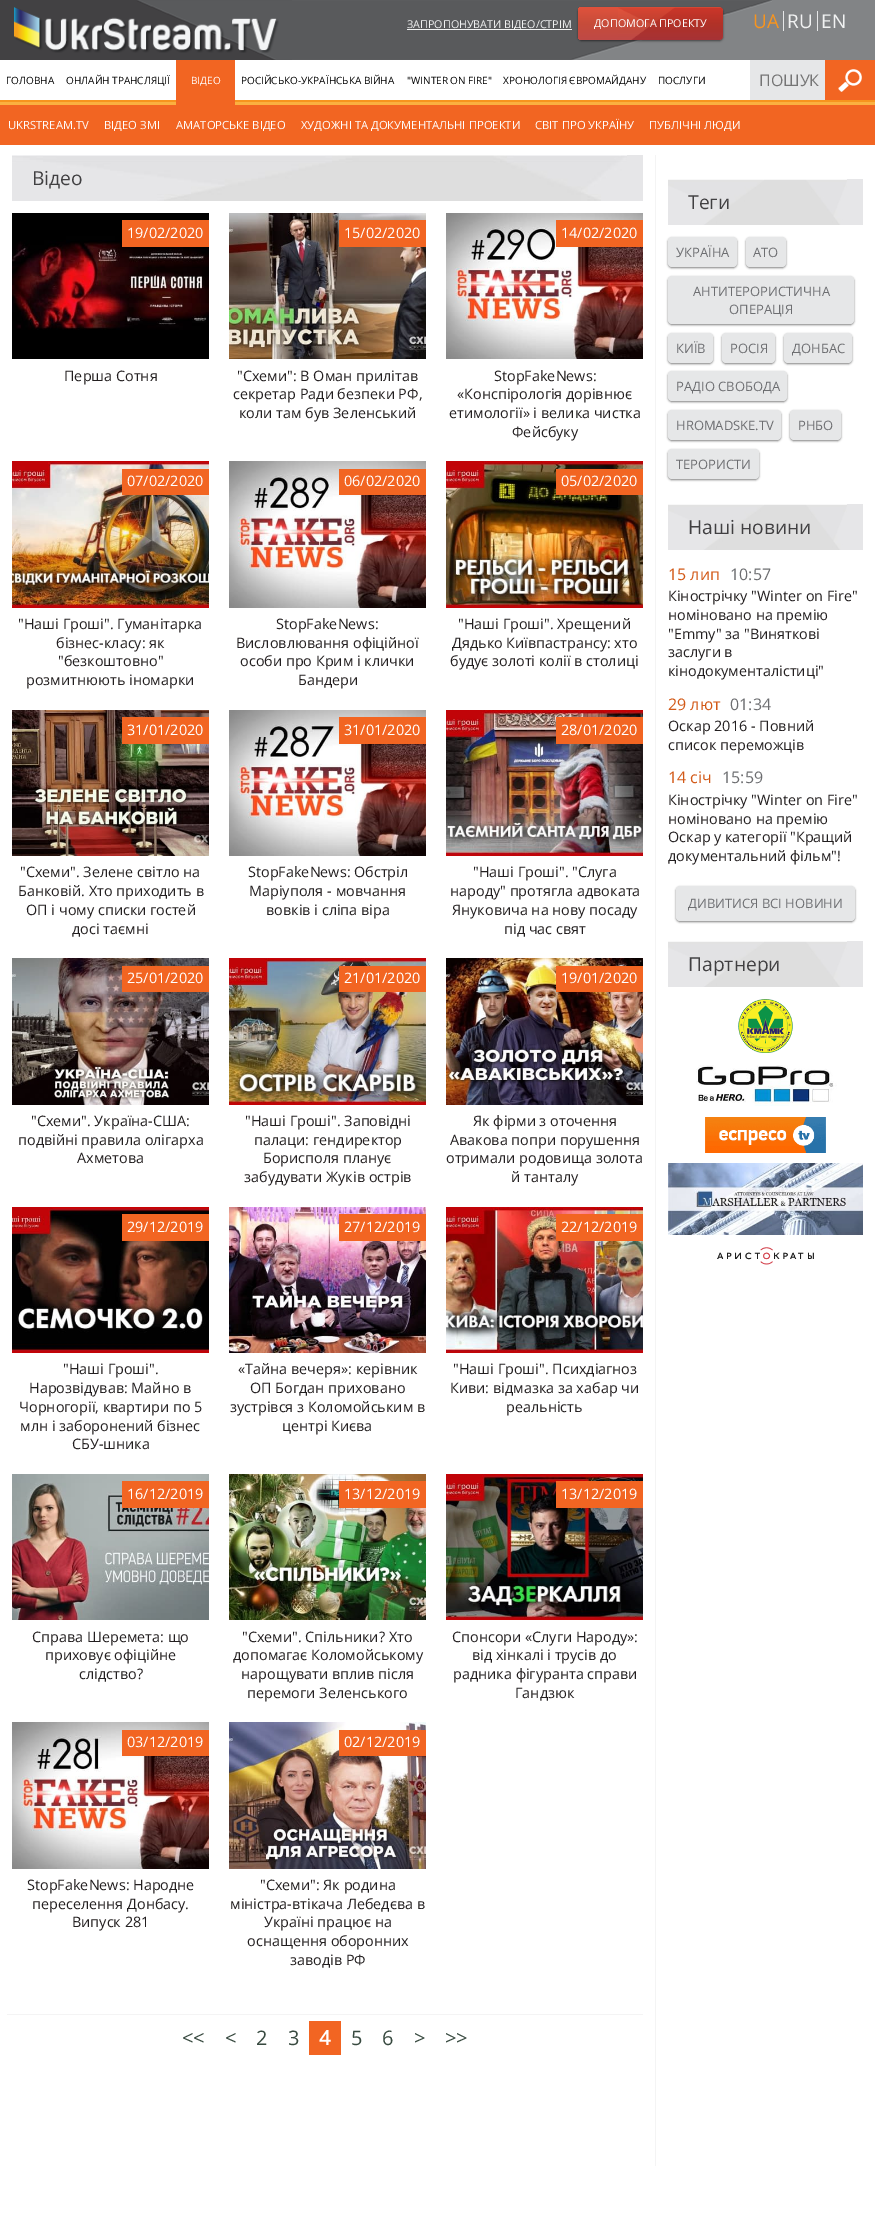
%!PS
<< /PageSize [875 2216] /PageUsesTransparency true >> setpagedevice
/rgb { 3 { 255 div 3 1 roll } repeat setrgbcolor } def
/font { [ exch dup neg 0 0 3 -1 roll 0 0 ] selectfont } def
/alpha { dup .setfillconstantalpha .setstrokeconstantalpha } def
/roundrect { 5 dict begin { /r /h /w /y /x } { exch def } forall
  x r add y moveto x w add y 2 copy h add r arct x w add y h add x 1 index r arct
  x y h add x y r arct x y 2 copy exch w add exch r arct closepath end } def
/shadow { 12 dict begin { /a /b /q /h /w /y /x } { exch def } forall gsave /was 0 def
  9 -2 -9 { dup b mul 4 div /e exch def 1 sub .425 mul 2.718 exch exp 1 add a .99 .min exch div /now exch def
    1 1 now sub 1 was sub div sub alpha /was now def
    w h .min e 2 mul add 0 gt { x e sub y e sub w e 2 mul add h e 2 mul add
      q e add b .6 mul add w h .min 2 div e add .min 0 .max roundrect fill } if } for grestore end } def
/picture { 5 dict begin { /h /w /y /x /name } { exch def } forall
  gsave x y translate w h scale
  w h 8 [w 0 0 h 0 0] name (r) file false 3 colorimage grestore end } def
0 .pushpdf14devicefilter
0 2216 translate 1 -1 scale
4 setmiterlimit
255 255 255 rgb
0 0 875 2216 rectfill
66 65 67 rgb
0 0 292 60 rectfill
(img/1.rgb) 137 0 155 60 picture
(img/2.rgb) 14 7 265 46 picture
130 132 134 rgb
292 0 583 60 rectfill
(img/3.rgb) 292 0 480 60 picture
241 242 242 rgb
407 29 165 1 rectfill
0 0 0 rgb
578 8 145 33 4 1 0.5 shadow
gsave 578 7 145 33 4 roundrect clip newpath
<< /ShadingType 2 /ColorSpace /DeviceRGB /Coords [651 7 651 40] /Extend [true true] /Function << /FunctionType 3 /Domain [0 1] /Functions [<< /FunctionType 2 /Domain [0 1] /C0 [0.878 0.322 0.235] /C1 [0.78 0.298 0.227] /N 1 >> << /FunctionType 2 /Domain [0 1] /C0 [0.78 0.298 0.227] /C1 [0.749 0.286 0.275] /N 1 >>] /Bounds [0.5] /Encode [0 1 0 1] >> >> shfill grestore
(img/4.rgb) 618 7 105 33 picture
[
  [783 11 1 20 230 231 232]
  [817 11 1 20 230 231 232]
  [0 102 875 3 251 176 64]
  [0 100 875 2 247 148 30]
  [176 60 59 45 242 101 34]
  [748 105 127 40 242 101 34]
  [0 105 748 40 242 101 34]
  [825 60 50 40 242 101 34]
  [750 60 75 40 230 231 232]
] { aload pop rgb rectfill } forall
(img/5.rgb) 838 69 24 23 picture
244 244 244 rgb
655 155 1 2011 rectfill
230 230 232 rgb
627 155 16 46 rectfill
(img/6.rgb) 12 155 615 46 picture
(img/7.rgb) 12 213 197 146 picture
242 101 34 rgb
122 220 87 27 rectfill
(img/8.rgb) 229 213 197 146 picture
339 220 87 27 rectfill
(img/9.rgb) 446 213 197 146 picture
556 220 87 27 rectfill
(img/10.rgb) 12 461 197 147 picture
122 469 87 26 rectfill
(img/11.rgb) 229 461 197 147 picture
339 469 87 26 rectfill
(img/12.rgb) 446 461 197 147 picture
556 469 87 26 rectfill
(img/13.rgb) 12 710 197 146 picture
122 717 87 27 rectfill
(img/14.rgb) 229 710 197 146 picture
339 717 87 27 rectfill
(img/15.rgb) 446 710 197 146 picture
556 717 87 27 rectfill
(img/16.rgb) 12 958 197 147 picture
122 966 87 26 rectfill
(img/17.rgb) 229 958 197 147 picture
339 966 87 26 rectfill
(img/18.rgb) 446 958 197 147 picture
556 966 87 26 rectfill
(img/19.rgb) 12 1207 197 146 picture
122 1214 87 27 rectfill
(img/20.rgb) 229 1207 197 146 picture
339 1214 87 27 rectfill
(img/21.rgb) 446 1207 197 146 picture
556 1214 87 27 rectfill
(img/22.rgb) 12 1474 197 146 picture
122 1481 87 27 rectfill
(img/23.rgb) 229 1474 197 146 picture
339 1481 87 27 rectfill
(img/24.rgb) 446 1474 197 146 picture
556 1481 87 27 rectfill
(img/25.rgb) 12 1722 197 147 picture
122 1730 87 26 rectfill
(img/26.rgb) 229 1722 197 147 picture
[
  [339 1730 87 26 242 101 34]
  [7 2014 636 1 244 244 244]
  [309 2021 32 34 242 101 34]
  [847 179 16 46 230 230 232]
] { aload pop rgb rectfill } forall
(img/27.rgb) 668 179 179 46 picture
0 0 0 rgb
668 238 69 30 4 1 0.5 shadow
230 231 232 rgb
668 237 69 30 4 roundrect fill
0 0 0 rgb
746 238 40 30 4 1 0.5 shadow
230 231 232 rgb
746 237 40 30 4 roundrect fill
0 0 0 rgb
668 277 186 48 4 1 0.5 shadow
230 231 232 rgb
668 276 186 48 4 roundrect fill
0 0 0 rgb
668 334 45 30 4 1 0.5 shadow
230 231 232 rgb
668 333 45 30 4 roundrect fill
0 0 0 rgb
722 334 53 30 4 1 0.5 shadow
230 231 232 rgb
722 333 53 30 4 roundrect fill
0 0 0 rgb
784 334 68 30 4 1 0.5 shadow
230 231 232 rgb
784 333 68 30 4 roundrect fill
0 0 0 rgb
668 372 119 30 4 1 0.5 shadow
230 231 232 rgb
668 371 119 30 4 roundrect fill
0 0 0 rgb
668 411 113 30 4 1 0.5 shadow
230 231 232 rgb
668 410 113 30 4 roundrect fill
0 0 0 rgb
790 411 51 30 4 1 0.5 shadow
230 231 232 rgb
790 410 51 30 4 roundrect fill
0 0 0 rgb
668 450 91 30 4 1 0.5 shadow
230 231 232 rgb
668 449 91 30 4 roundrect fill
230 230 232 rgb
847 504 16 46 rectfill
(img/27.rgb) 668 504 179 46 picture
0 0 0 rgb
676 887 179 35 4 1 0.5 shadow
230 231 232 rgb
676 886 179 35 4 roundrect fill
230 230 232 rgb
847 941 16 46 rectfill
(img/27.rgb) 668 941 179 46 picture
(img/28.rgb) 738 999 55 54 picture
(img/29.rgb) 696 1065 141 41 picture
(img/30.rgb) 705 1117 121 36 picture
(img/31.rgb) 668 1163 195 72 picture
(img/32.rgb) 717 1247 97 18 picture
/OpenSans-Regular 10.75 font
241 242 242 rgb
407 28 moveto (ЗАПРОПОНУВАТИ ВІДЕО/СТРІМ) show
255 255 255 rgb
594 27 moveto (ДОПОМОГА ПРОЕКТУ) show
/OpenSans-Regular 19 font
247 148 30 rgb
753 28 moveto (UA) show
241 242 242 rgb
787 28 moveto (RU) show
821 28 moveto (EN) show
/OpenSans-Regular 10 font
0 0 0 rgb
[
  [(ГОЛОВНА) 6 84]
  [(ОНЛАЙН ТРАНСЛЯЦІЇ) 66 84]
  [(РОСІЙСЬКО-УКРАЇНСЬКА ВІЙНА) 241 84]
  [(ХРОНОЛОГІЯ ЄВРОМАЙДАНУ) 503 84]
] { aload pop moveto show } forall
255 255 255 rgb
191 84 moveto (ВІДЕО) show
/OpenSans-Regular 11.25 font
[
  [(UKRSTREAM.TV) 8 129]
  [(ВІДЕО ЗМІ) 104 129]
  [(АМАТОРСЬКЕ ВІДЕО) 176 129]
  [(ХУДОЖНІ ТА ДОКУМЕНТАЛЬНІ ПРОЕКТИ) 301 129]
  [(СВІТ ПРО УКРАЇНУ) 535 129]
  [(ПУБЛІЧНІ ЛЮДИ) 649 129]
] { aload pop moveto show } forall
/OpenSans-Regular 10 font
0 0 0 rgb
407 84 moveto ("WINTER ON FIRE") show
658 84 moveto (ПОСЛУГИ) show
/OpenSans-Regular 16 font
117 117 117 rgb
759 86 moveto (ПОШУК) show
/OpenSans-Regular 19.25 font
65 64 66 rgb
32 185 moveto (Відео) show
/OpenSans-Regular 14.4 font
255 255 255 rgb
127 238 moveto (19/02/2020) show
35 31 32 rgb
64 381 moveto (Перша Сотня) show
255 255 255 rgb
344 238 moveto (15/02/2020) show
35 31 32 rgb
[
  [("Схеми": В Оман прилітав) 237 381]
  [(секретар Ради безпеки РФ,) 233 399]
  [(коли там був Зеленський) 239 418]
] { aload pop moveto show } forall
255 255 255 rgb
561 238 moveto (14/02/2020) show
35 31 32 rgb
[
  [(StopFakeNews:) 494 381]
  [(«Конспірологія дорівнює) 457 399]
  [(етимології» і велика чистка) 449 418]
  [(Фейсбуку) 512 437]
] { aload pop moveto show } forall
255 255 255 rgb
127 486 moveto (07/02/2020) show
35 31 32 rgb
[
  [("Наші Гроші". Гуманітарка) 18 629]
  [(бізнес-класу: як) 56 648]
  [("безкоштовно") 58 666]
  [(розмитнюють іномарки) 26 685]
] { aload pop moveto show } forall
255 255 255 rgb
344 486 moveto (06/02/2020) show
35 31 32 rgb
[
  [(StopFakeNews:) 276 629]
  [(Висловлювання офіційної) 236 648]
  [(особи про Крим і клички) 240 666]
  [(Бандери) 298 685]
] { aload pop moveto show } forall
255 255 255 rgb
561 486 moveto (05/02/2020) show
35 31 32 rgb
[
  [("Наші Гроші". Хрещений) 458 629]
  [(Дядько Київпастрансу: хто) 452 648]
  [(будує золоті колії в столиці) 450 666]
] { aload pop moveto show } forall
255 255 255 rgb
127 735 moveto (31/01/2020) show
35 31 32 rgb
[
  [("Схеми". Зелене світло на) 20 877]
  [(Банковій. Хто приходить в) 18 896]
  [(ОП і чому списки гостей) 26 915]
  [(досі таємні) 72 934]
] { aload pop moveto show } forall
255 255 255 rgb
344 735 moveto (31/01/2020) show
35 31 32 rgb
[
  [(StopFakeNews: Обстріл) 248 877]
  [(Маріуполя - мовчання) 249 896]
  [(вовків і сліпа віра) 266 915]
] { aload pop moveto show } forall
255 255 255 rgb
561 735 moveto (28/01/2020) show
35 31 32 rgb
[
  [("Наші Гроші". "Слуга) 473 877]
  [(народу" протягла адвоката) 450 896]
  [(Януковича на нову посаду) 452 915]
  [(під час свят) 504 934]
] { aload pop moveto show } forall
255 255 255 rgb
127 983 moveto (25/01/2020) show
35 31 32 rgb
[
  [("Схеми". Україна-США:) 31 1126]
  [(подвійні правила олігарха) 18 1145]
  [(Ахметова) 77 1163]
] { aload pop moveto show } forall
255 255 255 rgb
344 983 moveto (21/01/2020) show
35 31 32 rgb
[
  [("Наші Гроші". Заповідні) 245 1126]
  [(палаци: гендиректор) 254 1145]
  [(Борисполя планує) 263 1163]
  [(забудувати Жуків острів) 244 1182]
] { aload pop moveto show } forall
255 255 255 rgb
561 983 moveto (19/01/2020) show
35 31 32 rgb
[
  [(Як фірми з оточення) 473 1126]
  [(Авакова попри порушення) 450 1145]
  [(отримали родовища золота) 446 1163]
  [(й танталу) 511 1182]
] { aload pop moveto show } forall
255 255 255 rgb
127 1232 moveto (29/12/2019) show
35 31 32 rgb
[
  [("Наші Гроші".) 63 1374]
  [(Нарозвідував: Майно в) 29 1393]
  [(Чорногорії, квартири по 5) 19 1412]
  [(млн і заборонений бізнес) 20 1431]
  [(СБУ-шника) 72 1449]
] { aload pop moveto show } forall
255 255 255 rgb
344 1232 moveto (27/12/2019) show
35 31 32 rgb
[
  [(«Тайна вечеря»: керівник) 238 1374]
  [(ОП Богдан приховано) 250 1393]
  [(зустрівся з Коломойським в) 230 1412]
  [(центрі Києва) 282 1431]
] { aload pop moveto show } forall
255 255 255 rgb
561 1232 moveto (22/12/2019) show
35 31 32 rgb
[
  [("Наші Гроші". Психдіагноз) 453 1374]
  [(Киви: відмазка за хабар чи) 450 1393]
  [(реальність) 506 1412]
] { aload pop moveto show } forall
255 255 255 rgb
127 1499 moveto (16/12/2019) show
35 31 32 rgb
[
  [(Справа Шеремета: що) 32 1642]
  [(приховує офіційне) 45 1660]
  [(слідство?) 79 1679]
] { aload pop moveto show } forall
255 255 255 rgb
344 1499 moveto (13/12/2019) show
35 31 32 rgb
[
  [("Схеми". Спільники? Хто) 242 1642]
  [(допомагає Коломойському) 233 1660]
  [(нарощувати вплив після) 241 1679]
  [(перемоги Зеленського) 247 1698]
] { aload pop moveto show } forall
255 255 255 rgb
561 1499 moveto (13/12/2019) show
35 31 32 rgb
[
  [(Спонсори «Слуги Народу»:) 452 1642]
  [(від хінкалі і трусів до) 472 1660]
  [(радника фігуранта справи) 453 1679]
  [(Гандзюк) 515 1698]
] { aload pop moveto show } forall
255 255 255 rgb
127 1747 moveto (03/12/2019) show
35 31 32 rgb
[
  [(StopFakeNews: Народне) 27 1890]
  [(переселення Донбасу.) 32 1909]
  [(Випуск 281) 72 1927]
] { aload pop moveto show } forall
255 255 255 rgb
344 1747 moveto (02/12/2019) show
35 31 32 rgb
[
  [("Схеми": Як родина) 260 1890]
  [(міністра-втікача Лебедєва в) 230 1909]
  [(Україні працює на) 264 1927]
  [(оснащення оборонних) 247 1946]
  [(заводів РФ) 290 1965]
] { aload pop moveto show } forall
/OpenSans-Regular 20 font
56 74 64 rgb
[
  [(<<) 182 2045]
  [(<) 225 2045]
  [(2) 256 2045]
  [(3) 288 2045]
] { aload pop moveto show } forall
/OpenSans-Bold 20 font
255 255 255 rgb
319 2045 moveto (4) show
/OpenSans-Regular 20 font
56 74 64 rgb
[
  [(5) 351 2045]
  [(6) 382 2045]
  [(>) 414 2045]
  [(>>) 445 2045]
] { aload pop moveto show } forall
/OpenSans-Regular 19.25 font
65 64 66 rgb
688 209 moveto (Теги) show
/OpenSans-Regular 13 font
109 110 113 rgb
[
  [(УКРАЇНА) 676 257]
  [(АТО) 753 257]
  [(АНТИТЕРОРИСТИЧНА) 693 296]
  [(ОПЕРАЦІЯ) 729 314]
  [(КИЇВ) 676 353]
  [(РОСІЯ) 730 353]
  [(ДОНБАС) 792 353]
  [(РАДІО СВОБОДА) 676 391]
  [(HROMADSKE.TV) 676 430]
  [(РНБО) 798 430]
  [(ТЕРОРИСТИ) 676 469]
] { aload pop moveto show } forall
/OpenSans-Regular 19.25 font
65 64 66 rgb
688 534 moveto (Наші новини) show
/OpenSans-Regular 16 font
210 89 23 rgb
668 580 moveto (15 лип) show
109 110 113 rgb
730 580 moveto (10:57) show
/OpenSans-Regular 14.4 font
35 31 32 rgb
[
  [(Кінострічку "Winter on Fire") 668 601]
  [(номіновано на премію) 668 620]
  [("Emmy" за "Виняткові) 668 639]
  [(заслуги в) 668 657]
  [(кінодокументалістиці") 668 676]
] { aload pop moveto show } forall
/OpenSans-Regular 16 font
210 89 23 rgb
668 710 moveto (29 лют) show
109 110 113 rgb
730 710 moveto (01:34) show
/OpenSans-Regular 14.4 font
35 31 32 rgb
668 731 moveto (Оскар 2016 - Повний) show
668 750 moveto (список переможців) show
/OpenSans-Regular 16 font
210 89 23 rgb
668 783 moveto (14 січ) show
109 110 113 rgb
722 783 moveto (15:59) show
/OpenSans-Regular 14.4 font
35 31 32 rgb
[
  [(Кінострічку "Winter on Fire") 668 805]
  [(номіновано на премію) 668 824]
  [(Оскар у категорії "Кращий) 668 842]
  [(документальний фільм"!) 668 861]
] { aload pop moveto show } forall
/OpenSans-Regular 13 font
109 110 113 rgb
688 908 moveto (ДИВИТИСЯ ВСІ НОВИНИ) show
/OpenSans-Regular 19.25 font
65 64 66 rgb
688 971 moveto (Партнери) show
.poppdf14devicefilter showpage
